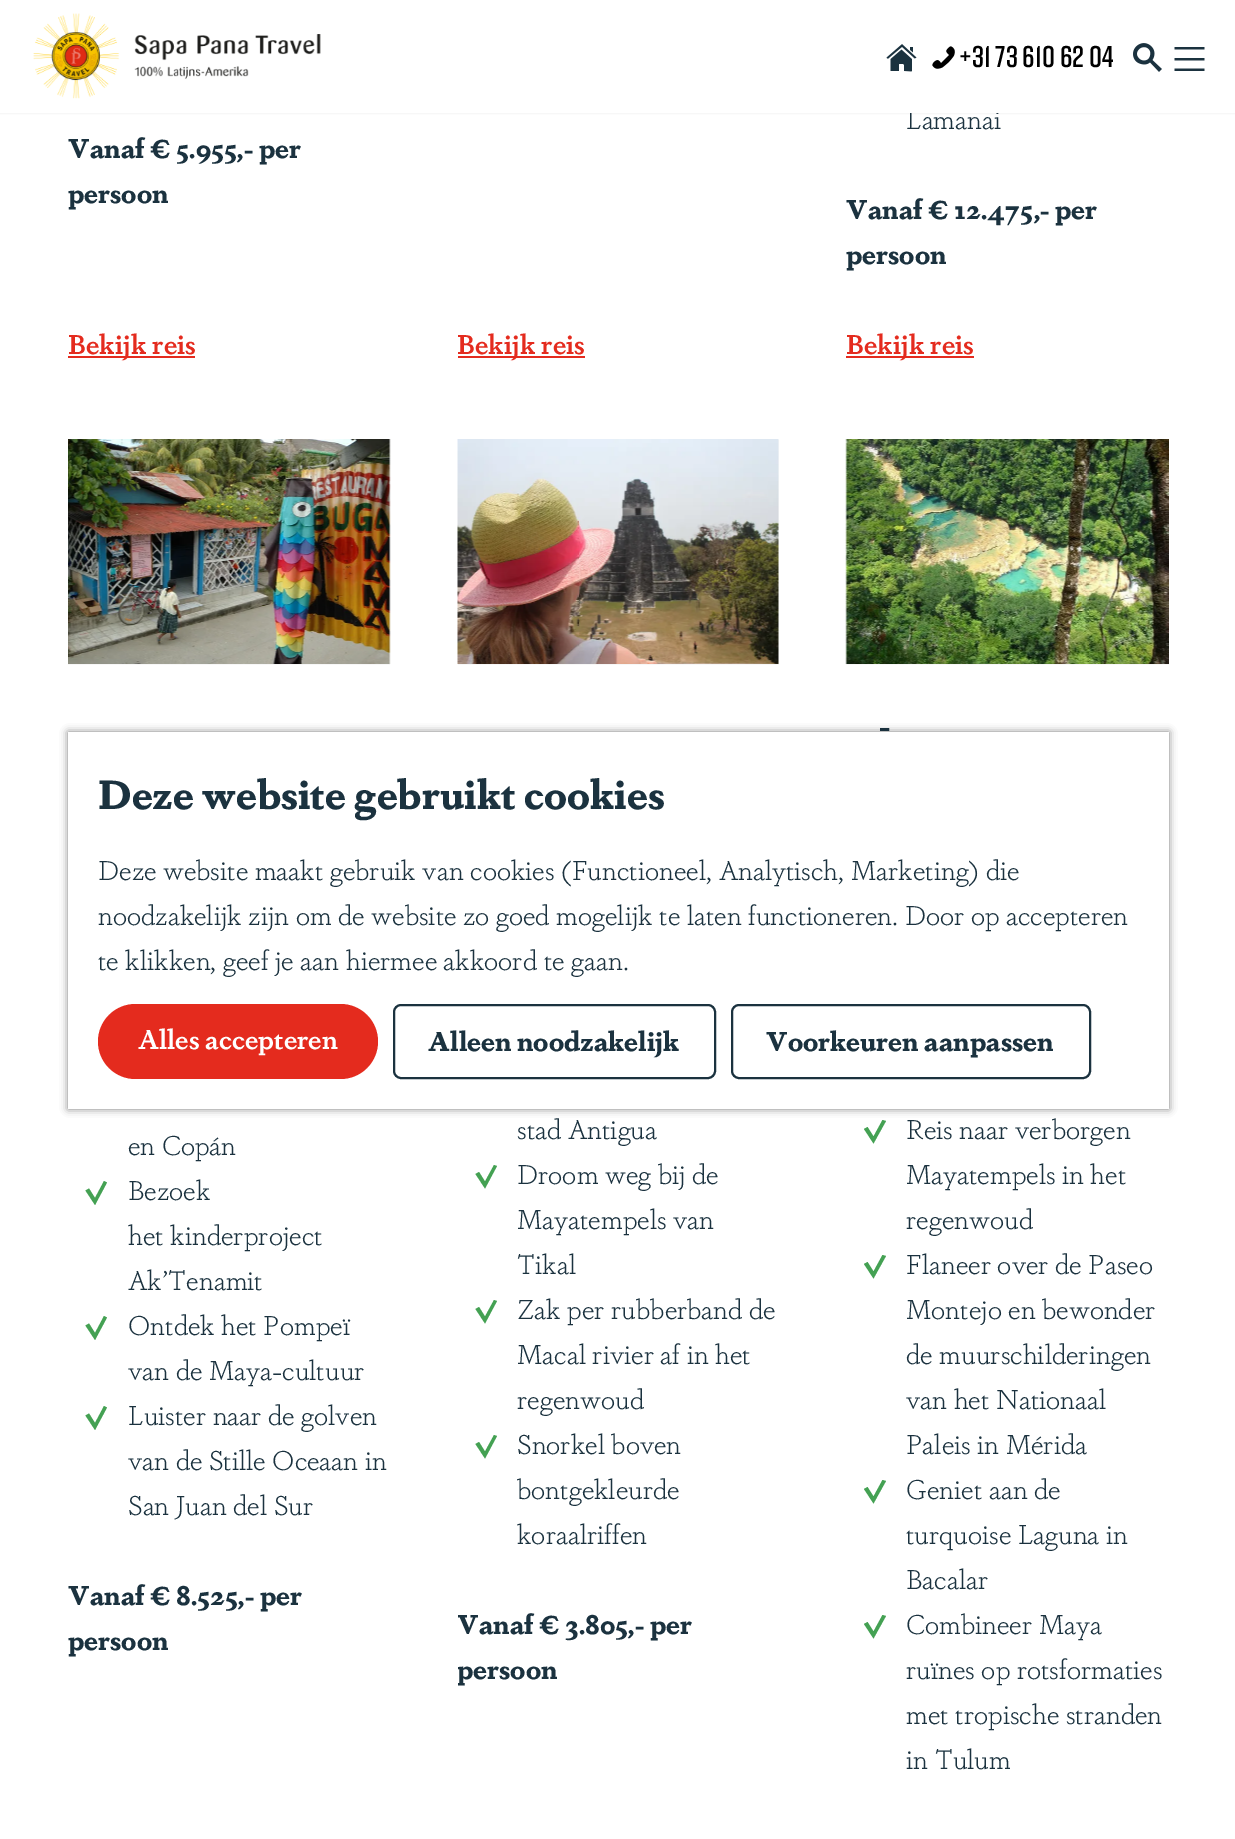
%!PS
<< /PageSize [1235 1839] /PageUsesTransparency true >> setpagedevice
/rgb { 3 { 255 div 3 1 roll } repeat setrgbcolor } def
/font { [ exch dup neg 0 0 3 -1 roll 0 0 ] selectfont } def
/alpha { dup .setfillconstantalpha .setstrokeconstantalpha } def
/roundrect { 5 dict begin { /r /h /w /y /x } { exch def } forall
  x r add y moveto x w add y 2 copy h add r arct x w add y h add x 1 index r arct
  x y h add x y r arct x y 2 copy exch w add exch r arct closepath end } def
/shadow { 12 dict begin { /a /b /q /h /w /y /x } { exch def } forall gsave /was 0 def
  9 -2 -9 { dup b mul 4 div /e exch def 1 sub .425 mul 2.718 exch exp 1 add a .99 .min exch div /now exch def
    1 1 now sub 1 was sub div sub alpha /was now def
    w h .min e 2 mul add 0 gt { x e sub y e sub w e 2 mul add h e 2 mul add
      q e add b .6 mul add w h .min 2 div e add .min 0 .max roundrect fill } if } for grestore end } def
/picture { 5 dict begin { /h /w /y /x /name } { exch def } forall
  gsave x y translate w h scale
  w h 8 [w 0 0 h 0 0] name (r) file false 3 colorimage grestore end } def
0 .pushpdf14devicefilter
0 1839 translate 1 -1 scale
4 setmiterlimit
255 255 255 rgb
0 0 1235 1839 rectfill
0 0 0 rgb
0 0 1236 113 0 1 0.1 shadow
[
  [68 356 127 2 228 43 30]
  [458 356 127 2 228 43 30]
  [846 356 128 2 228 43 30]
  [68 440 322 225 247 247 247]
] { aload pop rgb rectfill } forall
(img/6.rgb) 68 439 323 225 picture
68 161 83 rgb
104 1181 moveto 95 1198 lineto 89 1188.5 lineto 85.5 1190.5 lineto 95 1205 lineto 107 1182.5 lineto closepath fill
104 1316 moveto 95 1333 lineto 89 1323.5 lineto 85.5 1325.5 lineto 95 1340 lineto 107 1317.5 lineto closepath fill
104 1406 moveto 95 1423 lineto 89 1413.5 lineto 85.5 1415.5 lineto 95 1430 lineto 107 1407.5 lineto closepath fill
247 247 247 rgb
458 440 321 225 rectfill
(img/7.rgb) 457 439 322 225 picture
68 161 83 rgb
494 1165 moveto 485 1181.5 lineto 479 1172 lineto 475.5 1174 lineto 485 1188.5 lineto 497 1166 lineto closepath fill
494 1300 moveto 485 1316.5 lineto 479 1307 lineto 475.5 1309 lineto 485 1323.5 lineto 497 1301 lineto closepath fill
494 1435 moveto 485 1451.5 lineto 479 1442 lineto 475.5 1444 lineto 485 1458.5 lineto 497 1436 lineto closepath fill
247 247 247 rgb
846 440 323 225 rectfill
(img/8.rgb) 845 439 324 225 picture
68 161 83 rgb
882.5 1120 moveto 873.5 1136.5 lineto 867.5 1127 lineto 864 1129 lineto 873.5 1143.5 lineto 886 1121 lineto closepath fill
882.5 1255 moveto 873.5 1271.5 lineto 867.5 1262 lineto 864 1264 lineto 873.5 1278.5 lineto 886 1256 lineto closepath fill
882.5 1480 moveto 873.5 1496.5 lineto 867.5 1487 lineto 864 1489 lineto 873.5 1503.5 lineto 886 1481 lineto closepath fill
882.5 1615 moveto 873.5 1631.5 lineto 867.5 1622 lineto 864 1624 lineto 873.5 1638.5 lineto 886 1616 lineto closepath fill
0 0 0 rgb
68 732 1101 377 0 4 0.5 shadow
255 255 255 rgb
68 732 1101 377 rectfill
228 43 30 rgb
98 1004 280 75 37.5 roundrect fill
27 50 63 rgb
2 setlinewidth
394 1005 321 73 7 roundrect stroke
732 1005 358 73 7 roundrect stroke
/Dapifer-Bold 27 font
68 158 moveto (Vanaf € 5.955,- per) show
68 203 moveto (persoon) show
/Dapifer-SemiBold 27 font
228 43 30 rgb
68 354 moveto (Bekijk reis) show
457 354 moveto (Bekijk reis) show
/Dapifer-Light 27 font
27 50 63 rgb
906 129 moveto (Lamanai) show
255 255 255 rgb
0 0 1235 113 rectfill
(img/5.rgb) 1174 47 31 24 picture
(img/4.rgb) 1133 43 29 29 picture
/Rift-SemiBold 30 font
0 0 0 rgb
959 67 moveto (+31 73 610 62 04) show
(img/3.rgb) 932 46 23 23 picture
(img/2.rgb) 886 44 31 28 picture
(img/1.rgb) 33 13 288 86 picture
/Dapifer-Bold 27 font
27 50 63 rgb
846 219 moveto (Vanaf € 12.475,- per) show
846 264 moveto (persoon) show
/Dapifer-SemiBold 27 font
228 43 30 rgb
846 354 moveto (Bekijk reis) show
/Dapifer-Light 27 font
27 50 63 rgb
[
  [(en Copán) 128 1155]
  [(Bezoek) 128 1200]
  [(het kinderproject) 128 1245]
  [(Ak’Tenamit) 128 1290]
  [(Ontdek het Pompeï) 128 1335]
  [(van de Maya-cultuur) 128 1380]
  [(Luister naar de golven) 128 1425]
  [(van de Stille Oceaan in) 128 1470]
  [(San Juan del Sur) 128 1515]
] { aload pop moveto show } forall
/Dapifer-Bold 27 font
68 1605 moveto (Vanaf € 8.525,- per) show
68 1650 moveto (persoon) show
/Dapifer-Light 27 font
[
  [(stad Antigua) 517 1139]
  [(Droom weg bij de) 517 1184]
  [(Mayatempels van) 517 1229]
  [(Tikal) 517 1274]
  [(Zak per rubberband de) 517 1319]
  [(Macal rivier af in het) 517 1364]
  [(regenwoud) 517 1409]
  [(Snorkel boven) 517 1454]
  [(bontgekleurde) 517 1499]
  [(koraalriffen) 517 1544]
] { aload pop moveto show } forall
gsave
458 440 321 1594 rectclip
/Dapifer-Bold 27 font
457 1634 moveto (Vanaf € 3.805,- per) show
457 1679 moveto (persoon) show
grestore
/Rift-SemiBold 40.5 font
879 744 moveto (-) show
/Dapifer-Light 27 font
[
  [(Reis naar verborgen) 906 1139]
  [(Mayatempels in het) 906 1184]
  [(regenwoud) 906 1229]
  [(Flaneer over de Paseo) 906 1274]
  [(Montejo en bewonder) 906 1319]
  [(de muurschilderingen) 906 1364]
  [(van het Nationaal) 906 1409]
  [(Paleis in Mérida) 906 1454]
  [(Geniet aan de) 906 1499]
  [(turquoise Laguna in) 906 1544]
  [(Bacalar) 906 1589]
  [(Combineer Maya) 906 1634]
  [(ruïnes op rotsformaties) 906 1679]
  [(met tropische stranden) 906 1724]
  [(in Tulum) 906 1769]
] { aload pop moveto show } forall
/Dapifer-Bold 40.5 font
98 809 moveto (Deze website gebruikt cookies) show
/Dapifer-Light 27 font
[
  [(Deze website maakt gebruik van cookies \(Functioneel, Analytisch, Marketing\) die) 98 880]
  [(noodzakelijk zijn om de website zo goed mogelijk te laten functioneren. Door op accepteren) 98 925]
  [(te klikken, geef je aan hiermee akkoord te gaan.) 98 970]
] { aload pop moveto show } forall
/Dapifer-SemiBold 27 font
255 255 255 rgb
138 1049 moveto (Alles accepteren) show
/Dapifer-Bold 27 font
27 50 63 rgb
428 1051 moveto (Alleen noodzakelijk) show
766 1051 moveto (Voorkeuren aanpassen) show
.poppdf14devicefilter showpage
